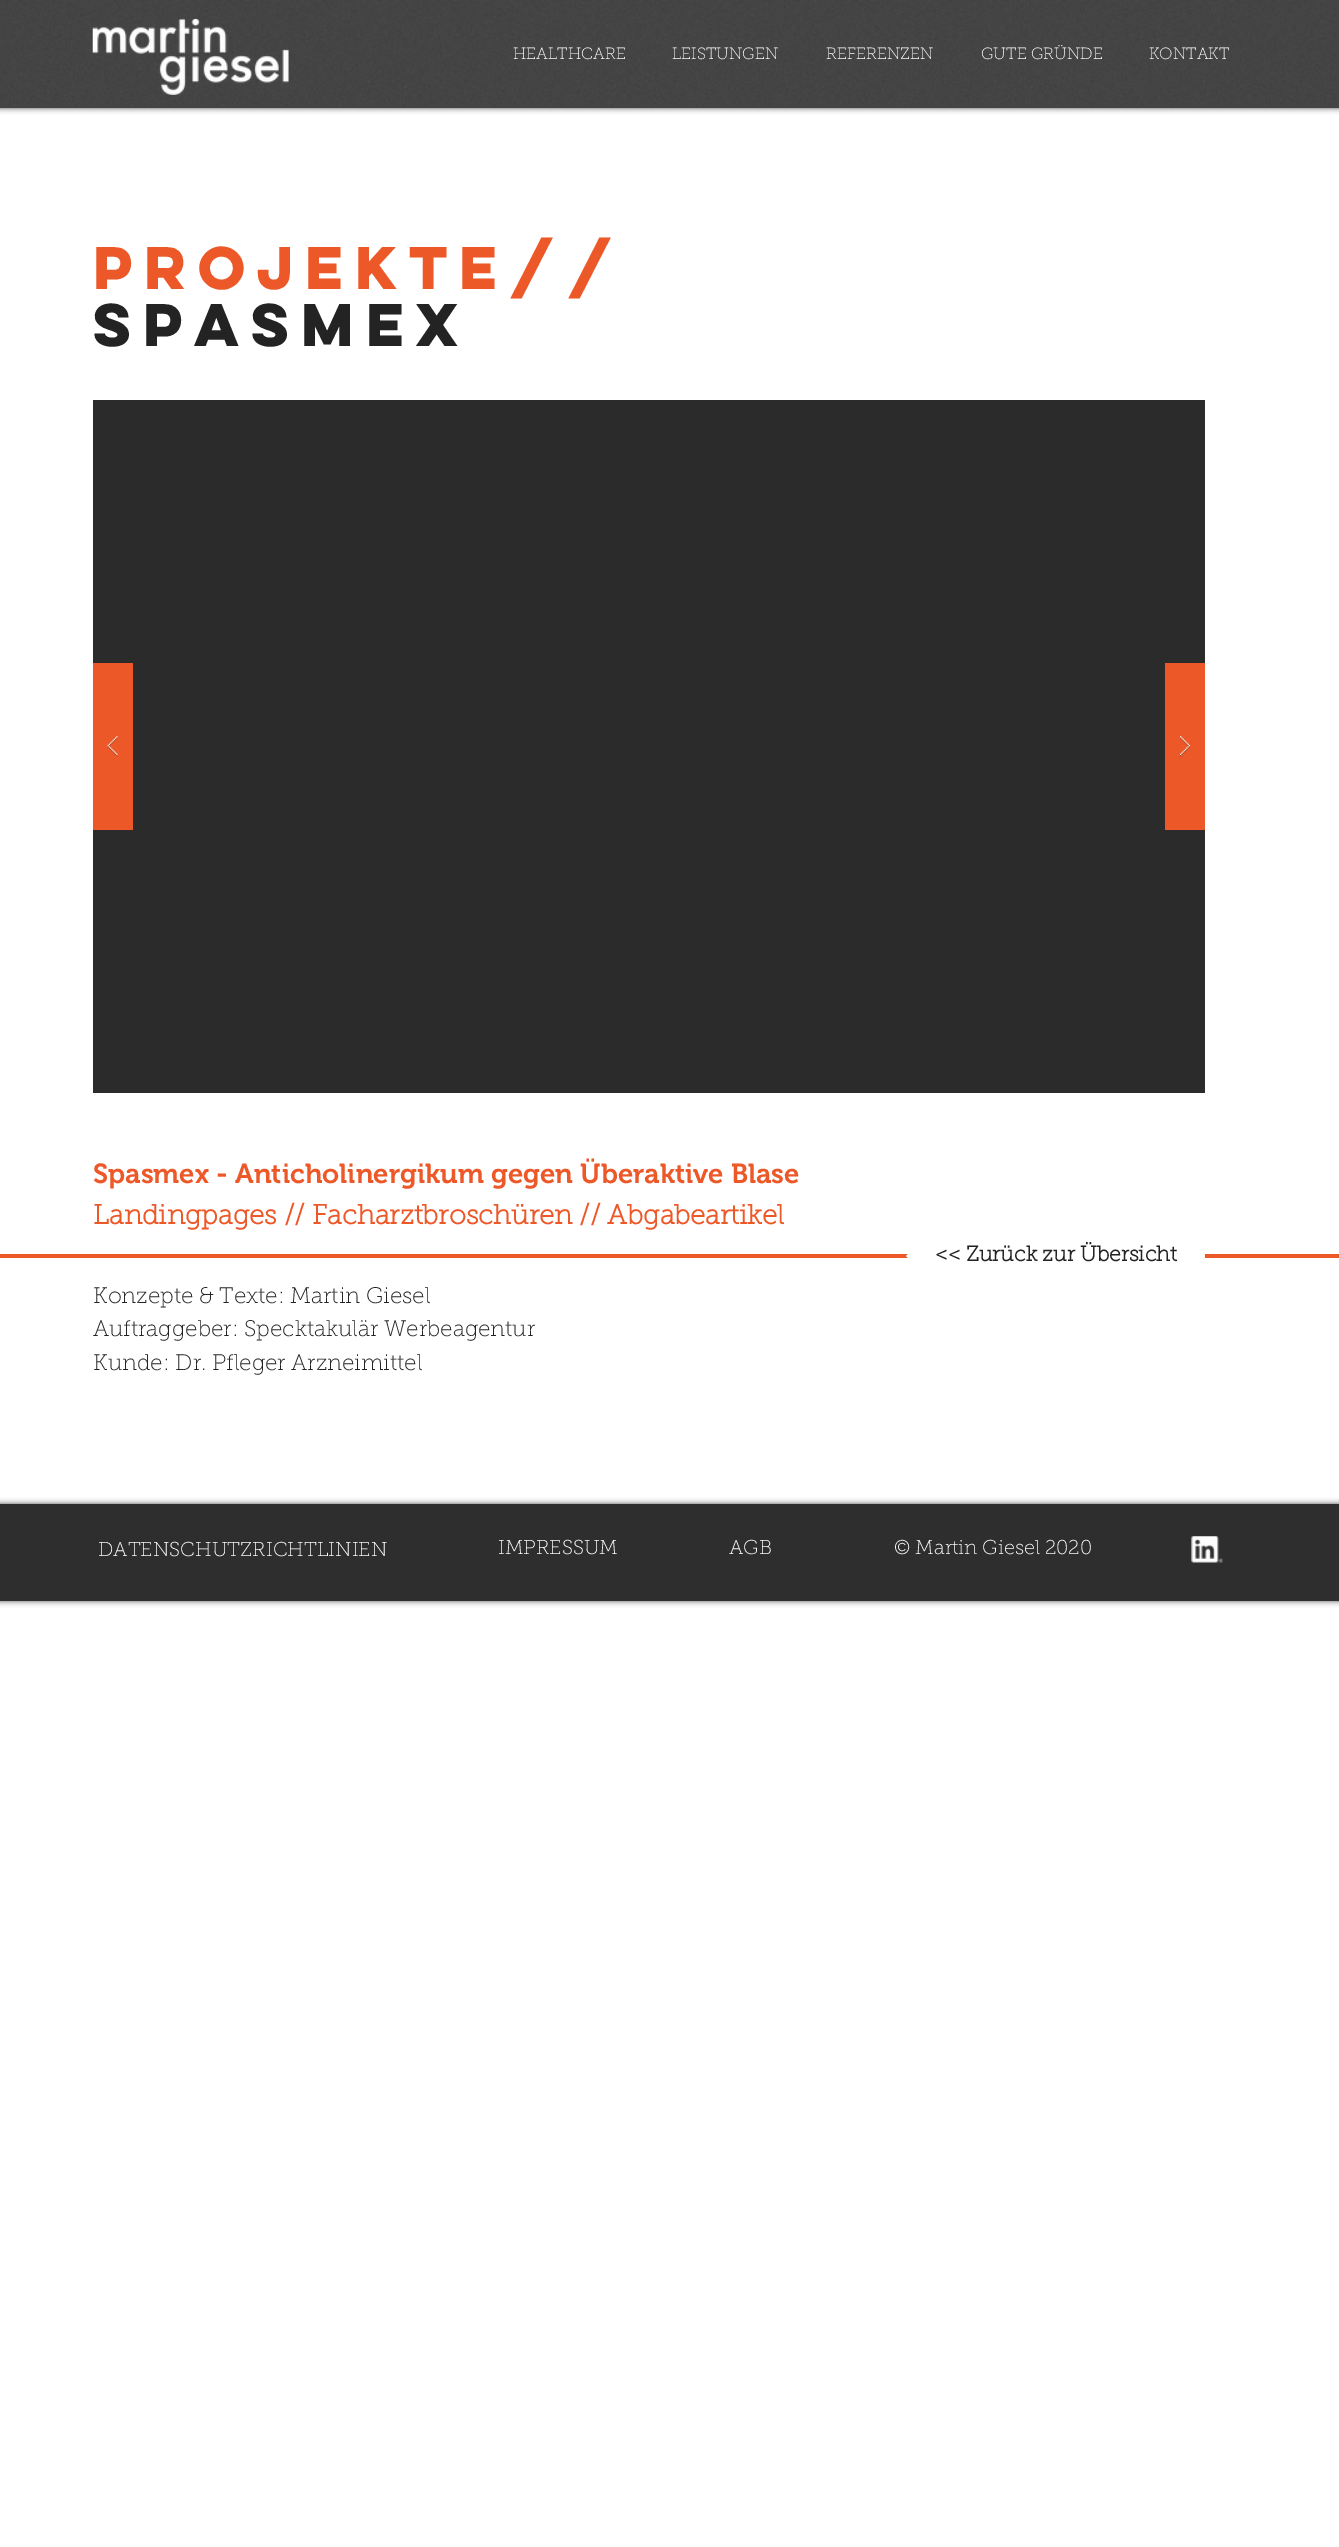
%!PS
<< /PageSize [1339 2547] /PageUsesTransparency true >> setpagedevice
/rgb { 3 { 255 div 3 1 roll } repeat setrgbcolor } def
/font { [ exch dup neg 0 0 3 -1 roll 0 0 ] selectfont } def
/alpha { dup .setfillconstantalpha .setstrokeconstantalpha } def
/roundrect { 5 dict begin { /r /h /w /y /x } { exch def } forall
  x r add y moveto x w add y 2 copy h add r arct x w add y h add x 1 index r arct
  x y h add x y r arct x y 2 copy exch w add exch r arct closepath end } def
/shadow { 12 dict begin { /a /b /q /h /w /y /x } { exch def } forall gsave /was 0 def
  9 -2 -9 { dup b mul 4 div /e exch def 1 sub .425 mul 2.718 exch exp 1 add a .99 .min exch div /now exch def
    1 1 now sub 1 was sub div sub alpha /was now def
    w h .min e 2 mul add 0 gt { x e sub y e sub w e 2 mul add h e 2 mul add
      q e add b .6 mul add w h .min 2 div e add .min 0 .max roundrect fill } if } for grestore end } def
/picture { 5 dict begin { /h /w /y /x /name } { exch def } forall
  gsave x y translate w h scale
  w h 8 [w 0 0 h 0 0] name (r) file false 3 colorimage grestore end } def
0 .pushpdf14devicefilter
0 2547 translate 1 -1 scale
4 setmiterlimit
255 255 255 rgb
0 0 1339 2547 rectfill
gsave
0 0 moveto 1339 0 lineto 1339 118 lineto 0 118 lineto closepath 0 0 moveto 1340 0 lineto 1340 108 lineto 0 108 lineto closepath eoclip newpath
0 0 0 rgb
0 0 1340 108 0 3 0.7 shadow
grestore
0.85 alpha
36 35 35 rgb
0 0 1339 108 rectfill
1 alpha
(img/1.rgb) 1 0 1335 106 picture
(img/2.rgb) 92 18 197 77 picture
43 43 43 rgb
93 400 1112 693 rectfill
237 88 41 rgb
93 663 40 167 rectfill
(img/3.rgb) 107 736 11 21 picture
1165 663 40 167 rectfill
(img/4.rgb) 1180 736 10 21 picture
0 1254 1339 4 rectfill
gsave
906 1226 299 60 rectclip
255 255 255 rgb
969 1256 moveto 906 1256 lineto 969 1194 lineto closepath 906 1256 moveto 969 1256 lineto 969 1319 lineto closepath fill
grestore
255 255 255 rgb
969 1254 236 4 rectfill
0 0 0 rgb
0 1504 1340 97 0 3 0.7 shadow
47 46 46 rgb
0 1504 1339 97 rectfill
(img/5.rgb) 1191 1536 32 27 picture
/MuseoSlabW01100-Thin 16.25 font
255 255 255 rgb
[
  [(HEALTHCARE) 513 59]
  [(LEISTUNGEN) 672 59]
  [(REFERENZEN) 826 59]
  [(GUTE GRÜNDE) 981 59]
  [(KONTAKT) 1149 59]
] { aload pop moveto show } forall
/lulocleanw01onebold-Bold 53.75 font
237 88 41 rgb
93 289 moveto (projekte//) show
36 35 35 rgb
93 346 moveto (Spasmex) show
/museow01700-SemiBold 27.5 font
237 88 41 rgb
93 1183 moveto (Spasmex - Anticholinergikum gegen Überaktive Blase) show
/MuseoSlabW01100-Bold 27.5 font
93 1224 moveto (Landingpages // Facharztbroschüren // Abgabeartikel) show
/MuseoSlabW01100-Bold 21.25 font
36 35 35 rgb
935 1261 moveto (<< Zurück zur Übersicht) show
/MuseoSlabW01100-Thin 22.5 font
[
  [(Konzepte & Texte: Martin Giesel) 93 1303]
  [(Auftraggeber: Specktakulär Werbeagentur) 93 1336]
  [(Kunde: Dr. Pfleger Arzneimittel) 93 1370]
] { aload pop moveto show } forall
/MuseoSlabW01100-Thin 20 font
255 255 255 rgb
[
  [(DATENSCHUTZRICHTLINIEN) 98 1556]
  [(IMPRESSUM) 498 1554]
  [(AGB) 729 1554]
  [(© Martin Giesel 2020) 894 1554]
] { aload pop moveto show } forall
.poppdf14devicefilter showpage
